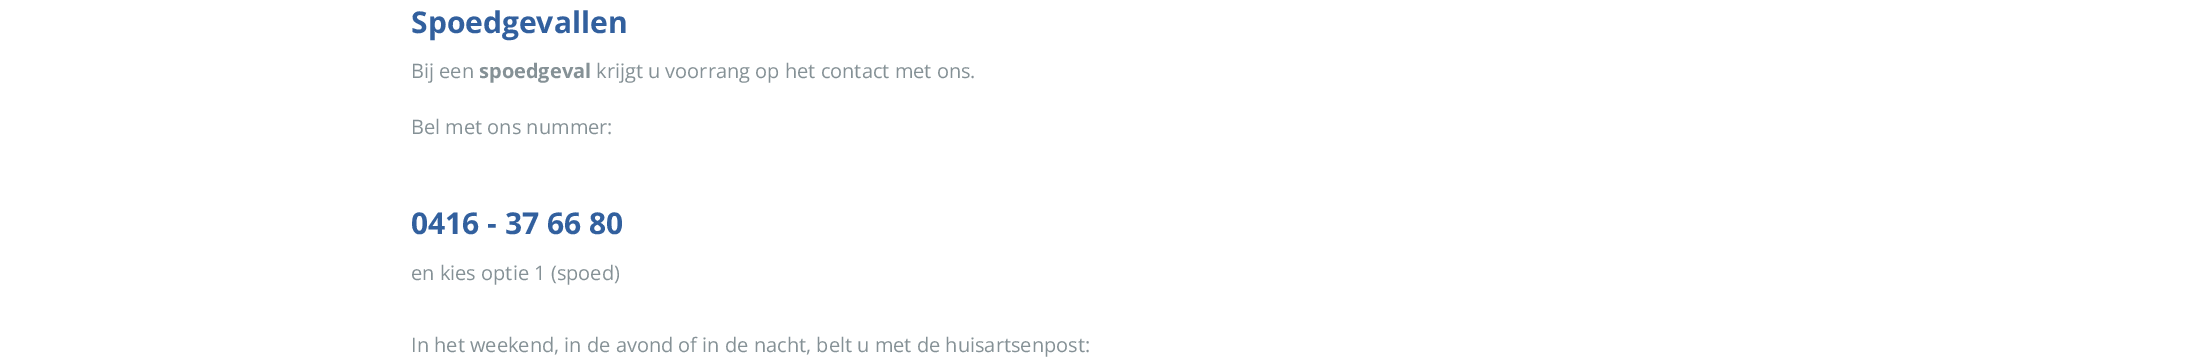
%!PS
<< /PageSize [2208 364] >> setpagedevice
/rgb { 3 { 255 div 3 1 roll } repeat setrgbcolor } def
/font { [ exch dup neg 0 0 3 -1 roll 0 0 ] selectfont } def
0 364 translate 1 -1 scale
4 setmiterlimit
255 255 255 rgb
0 0 2208 364 rectfill
/OpenSans-Bold 30 font
50 96 158 rgb
411 33 moveto (Spoedgevallen) show
/OpenSans-Regular 20 font
133 145 150 rgb
411 78 moveto (Bij een) show
/OpenSans-Bold 20 font
479 78 moveto (spoedgeval) show
/OpenSans-Regular 20 font
596 78 moveto (krijgt u voorrang op het contact met ons.) show
411 134 moveto (Bel met ons nummer:) show
/OpenSans-Bold 30 font
50 96 158 rgb
411 234 moveto (0416 - 37 66 80) show
/OpenSans-Regular 20 font
133 145 150 rgb
411 280 moveto (en kies optie 1 \(spoed\)) show
411 352 moveto (In het weekend, in de avond of in de nacht, belt u met de huisartsenpost:) show
showpage
